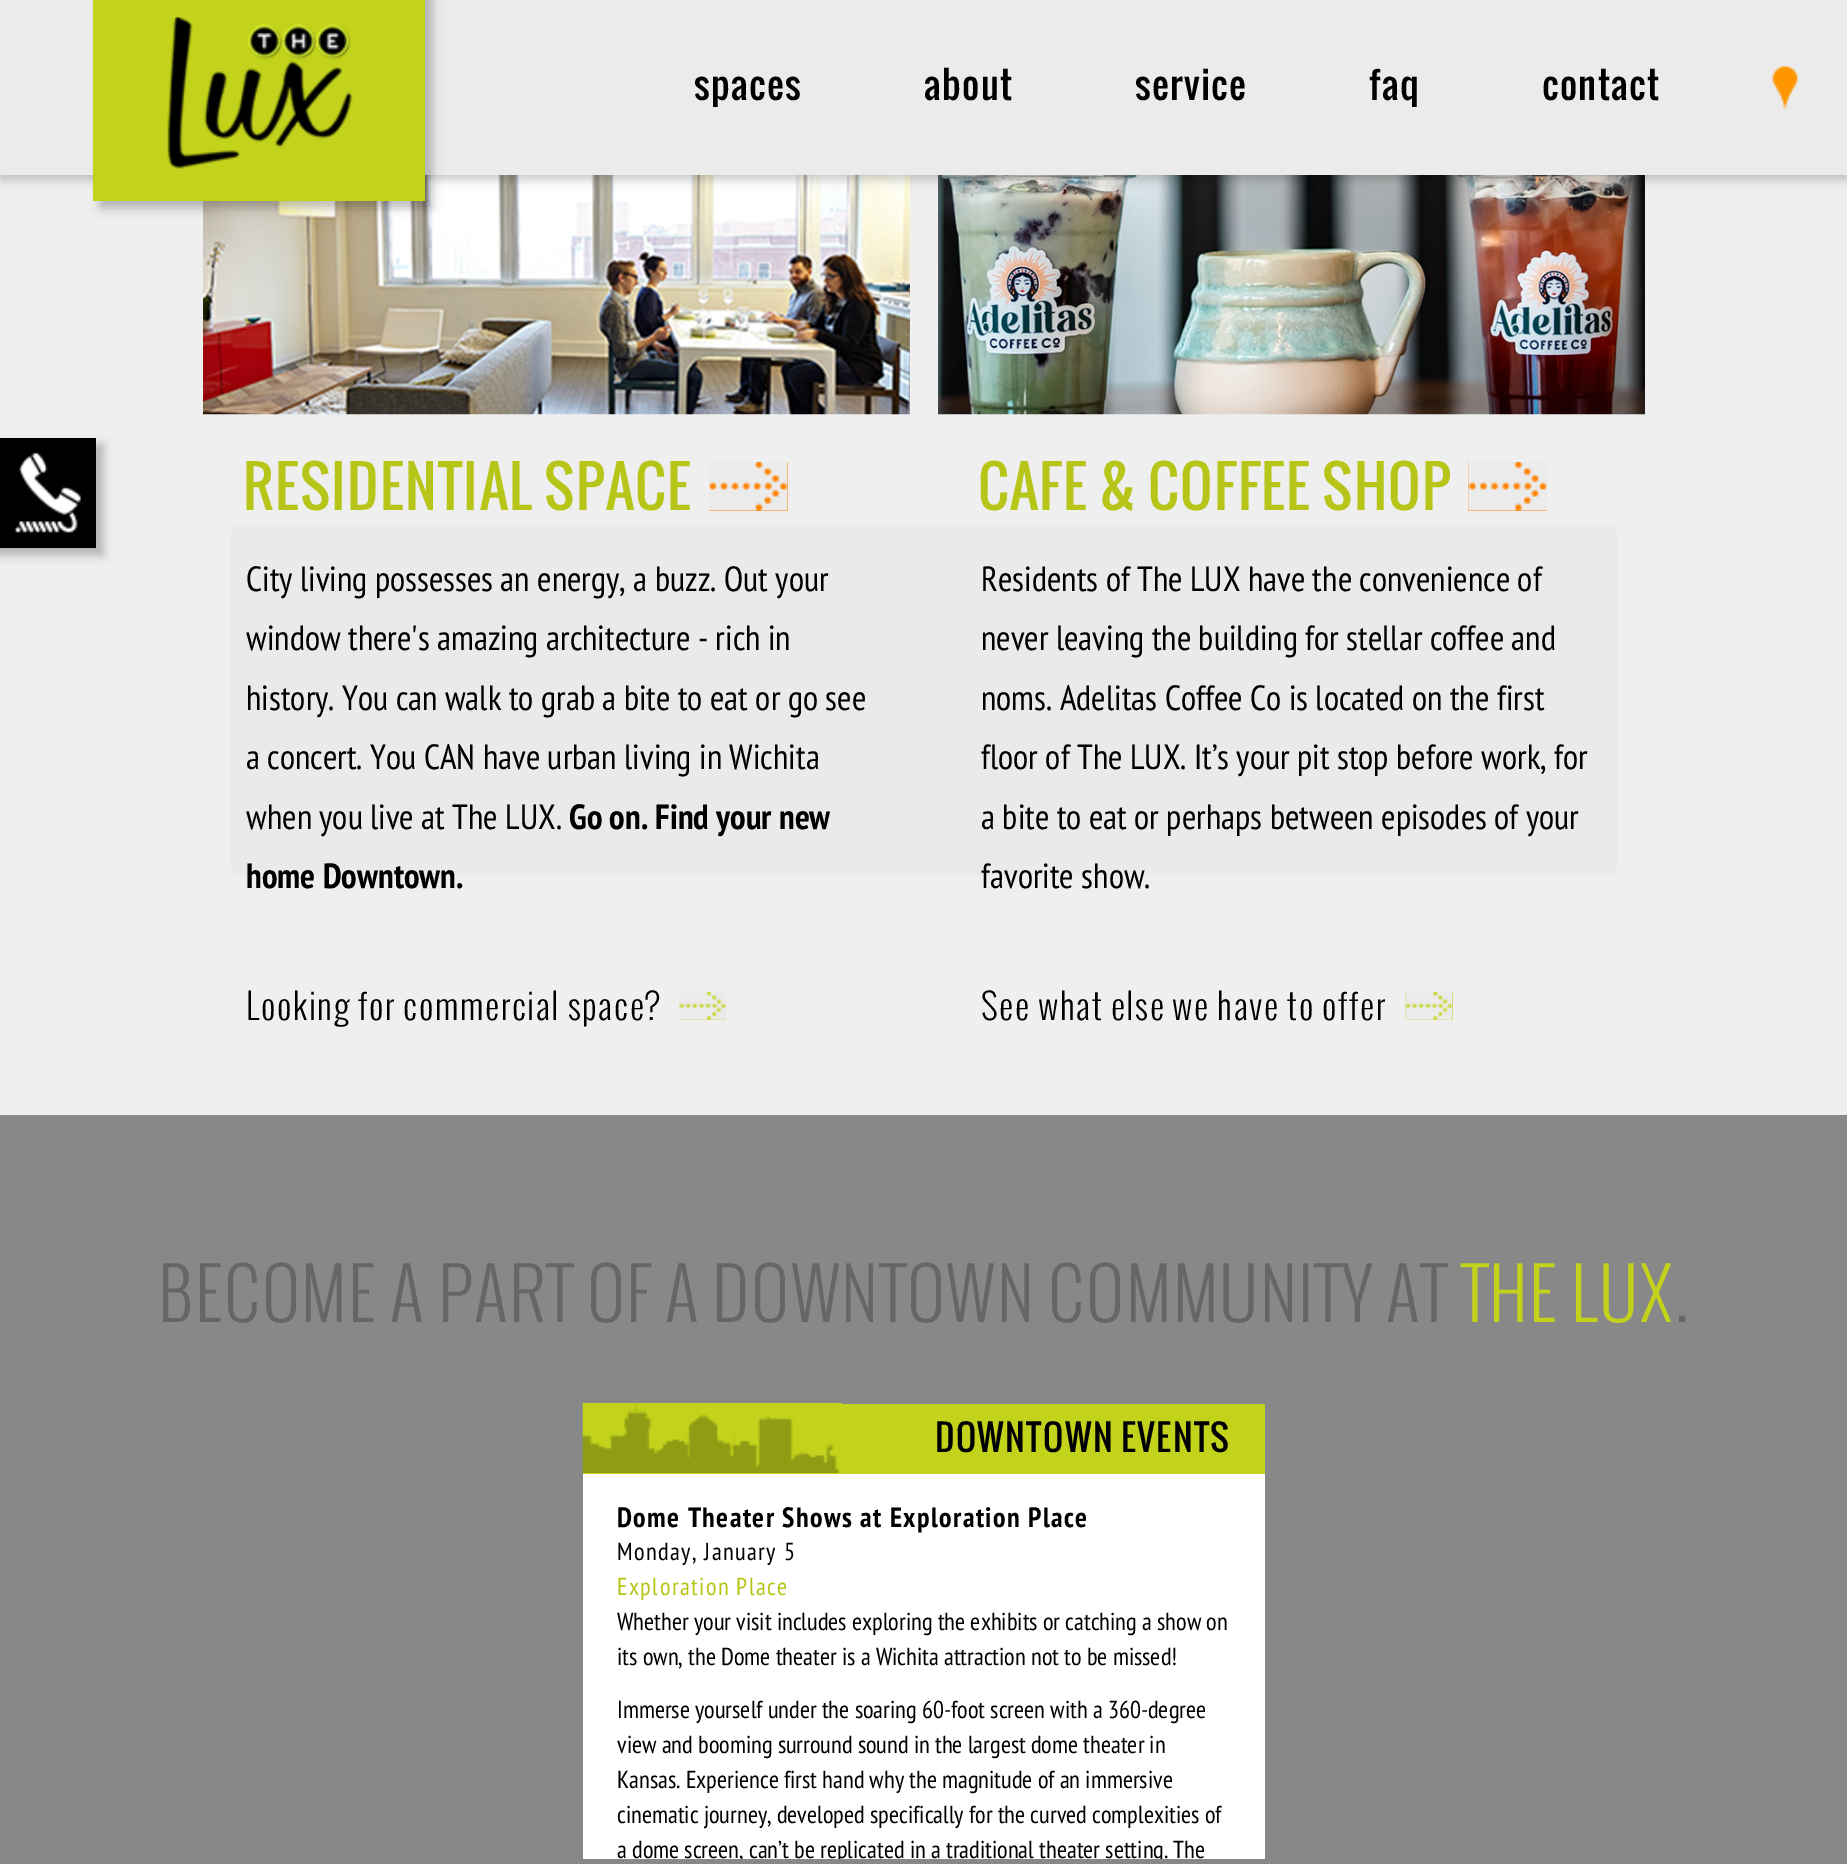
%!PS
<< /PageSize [1847 1864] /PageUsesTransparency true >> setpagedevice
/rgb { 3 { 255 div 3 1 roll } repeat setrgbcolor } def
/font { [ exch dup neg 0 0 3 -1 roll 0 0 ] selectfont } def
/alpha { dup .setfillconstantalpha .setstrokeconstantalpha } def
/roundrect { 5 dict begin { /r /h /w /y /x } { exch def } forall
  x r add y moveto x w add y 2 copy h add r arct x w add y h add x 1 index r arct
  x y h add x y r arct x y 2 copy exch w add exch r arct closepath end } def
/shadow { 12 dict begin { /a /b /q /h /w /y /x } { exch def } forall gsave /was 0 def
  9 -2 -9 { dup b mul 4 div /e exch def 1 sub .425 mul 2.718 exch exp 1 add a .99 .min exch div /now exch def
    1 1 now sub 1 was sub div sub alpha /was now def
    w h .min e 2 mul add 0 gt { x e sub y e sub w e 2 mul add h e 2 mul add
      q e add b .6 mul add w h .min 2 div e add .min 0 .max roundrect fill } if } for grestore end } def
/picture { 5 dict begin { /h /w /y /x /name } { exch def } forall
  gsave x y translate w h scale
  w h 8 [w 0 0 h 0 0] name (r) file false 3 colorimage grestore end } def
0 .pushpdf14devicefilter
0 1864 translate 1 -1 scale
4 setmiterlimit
239 239 239 rgb
0 0 1847 1864 rectfill
(img/4.rgb) 203 175 707 240 picture
(img/7.rgb) 938 175 707 240 picture
0 0 0 rgb
0 5 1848 175 0 5 0.2 shadow
235 235 235 rgb
0 0 1847 175 rectfill
0 0 0 rgb
100 -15 332 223 0 5 0.25 shadow
(img/1.rgb) 93 0 332 201 picture
(img/2.rgb) 1772 66 26 45 picture
-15 445 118 110 0 5 0.25 shadow
0 438 96 110 rectfill
(img/3.rgb) 15 452 66 81 picture
255 129 0 rgb
709 462 79 49 rectfill
(img/5.rgb) 709 462 79 49 picture
195 211 27 rgb
679 992 47 28 rectfill
(img/6.rgb) 679 992 47 28 picture
255 129 0 rgb
1468 462 79 49 rectfill
(img/8.rgb) 1468 462 79 49 picture
195 211 27 rgb
1405 992 48 28 rectfill
(img/9.rgb) 1405 992 48 28 picture
234 234 234 rgb
231 525 1386 350 9 roundrect fill
136 136 136 rgb
0 1115 1847 749 rectfill
195 211 27 rgb
583 1404 682 70 rectfill
(img/10.rgb) 582 1403 260 70 picture
255 255 255 rgb
583 1474 682 385 rectfill
/Oswald-Regular 37 font
0 0 0 rgb
694 100 moveto 1.4 0 (spaces) ashow
924 100 moveto 1.4 0 (about) ashow
1135 100 moveto 1.4 0 (service) ashow
1369 100 moveto 1.4 0 (faq) ashow
1542 100 moveto 1.4 0 (contact) ashow
/Oswald-Regular 56 font
182 197 24 rgb
243 510 moveto 1.4 0 (RESIDENTIAL SPACE) ashow
/PTSansNarrow-Regular 35 font
0 0 0 rgb
[
  [(City living possesses an energy, a buzz. Out your) 246 591]
  [(window there's amazing architecture - rich in) 246 650]
  [(history. You can walk to grab a bite to eat or go see) 246 710]
  [(a concert. You CAN have urban living in Wichita) 246 769]
  [(when you live at The LUX.) 246 829]
] { aload pop moveto show } forall
/PTSansNarrow-Bold 35 font
569 829 moveto (Go on. Find your new) show
246 888 moveto (home Downtown.) show
/Oswald-Light 35 font
246 1020 moveto 1.4 0 (Looking for commercial space?) ashow
/Oswald-Regular 56 font
182 197 24 rgb
978 510 moveto 1.4 0 (CAFE & COFFEE SHOP) ashow
/PTSansNarrow-Regular 35 font
0 0 0 rgb
[
  [(Residents of The LUX have the convenience of) 981 591]
  [(never leaving the building for stellar coffee and) 981 650]
  [(noms. Adelitas Coffee Co is located on the first) 981 710]
  [(floor of The LUX. It’s your pit stop before work, for) 981 769]
  [(a bite to eat or perhaps between episodes of your) 981 829]
  [(favorite show.) 981 888]
] { aload pop moveto show } forall
/Oswald-Light 35 font
981 1020 moveto 1.4 0 (See what else we have to offer) ashow
/Oswald-Light 70 font
102 102 102 rgb
158 1322 moveto 1.4 0 (BECOME A PART OF A DOWNTOWN COMMUNITY AT) ashow
195 210 26 rgb
1462 1322 moveto 1.4 0 (THE LUX) ashow
102 102 102 rgb
1675 1322 moveto 1.4 0 (.) ashow
/Oswald-Regular 35 font
0 0 0 rgb
935 1452 moveto 1.4 0 (DOWNTOWN EVENTS) ashow
/PTSansNarrow-Bold 28 font
617 1527 moveto 1.4 0 (Dome Theater Shows at Exploration Place) ashow
/PTSansNarrow-Regular 24.5 font
617 1560 moveto 1.4 0 (Monday, January 5) ashow
182 197 24 rgb
617 1595 moveto 1.4 0 (Exploration Place) ashow
0 0 0 rgb
[
  [(Whether your visit includes exploring the exhibits or catching a show on) 617 1630]
  [(its own, the Dome theater is a Wichita attraction not to be missed!) 617 1665]
  [(Immerse yourself under the soaring 60-foot screen with a 360-degree) 617 1718]
  [(view and booming surround sound in the largest dome theater in) 617 1753]
  [(Kansas. Experience first hand why the magnitude of an immersive) 617 1788]
  [(cinematic journey, developed specifically for the curved complexities of) 617 1823]
] { aload pop moveto show } forall
gsave
583 1474 682 385 rectclip
617 1858 moveto (a dome screen, can’t be replicated in a traditional theater setting. The) show
grestore
.poppdf14devicefilter showpage
